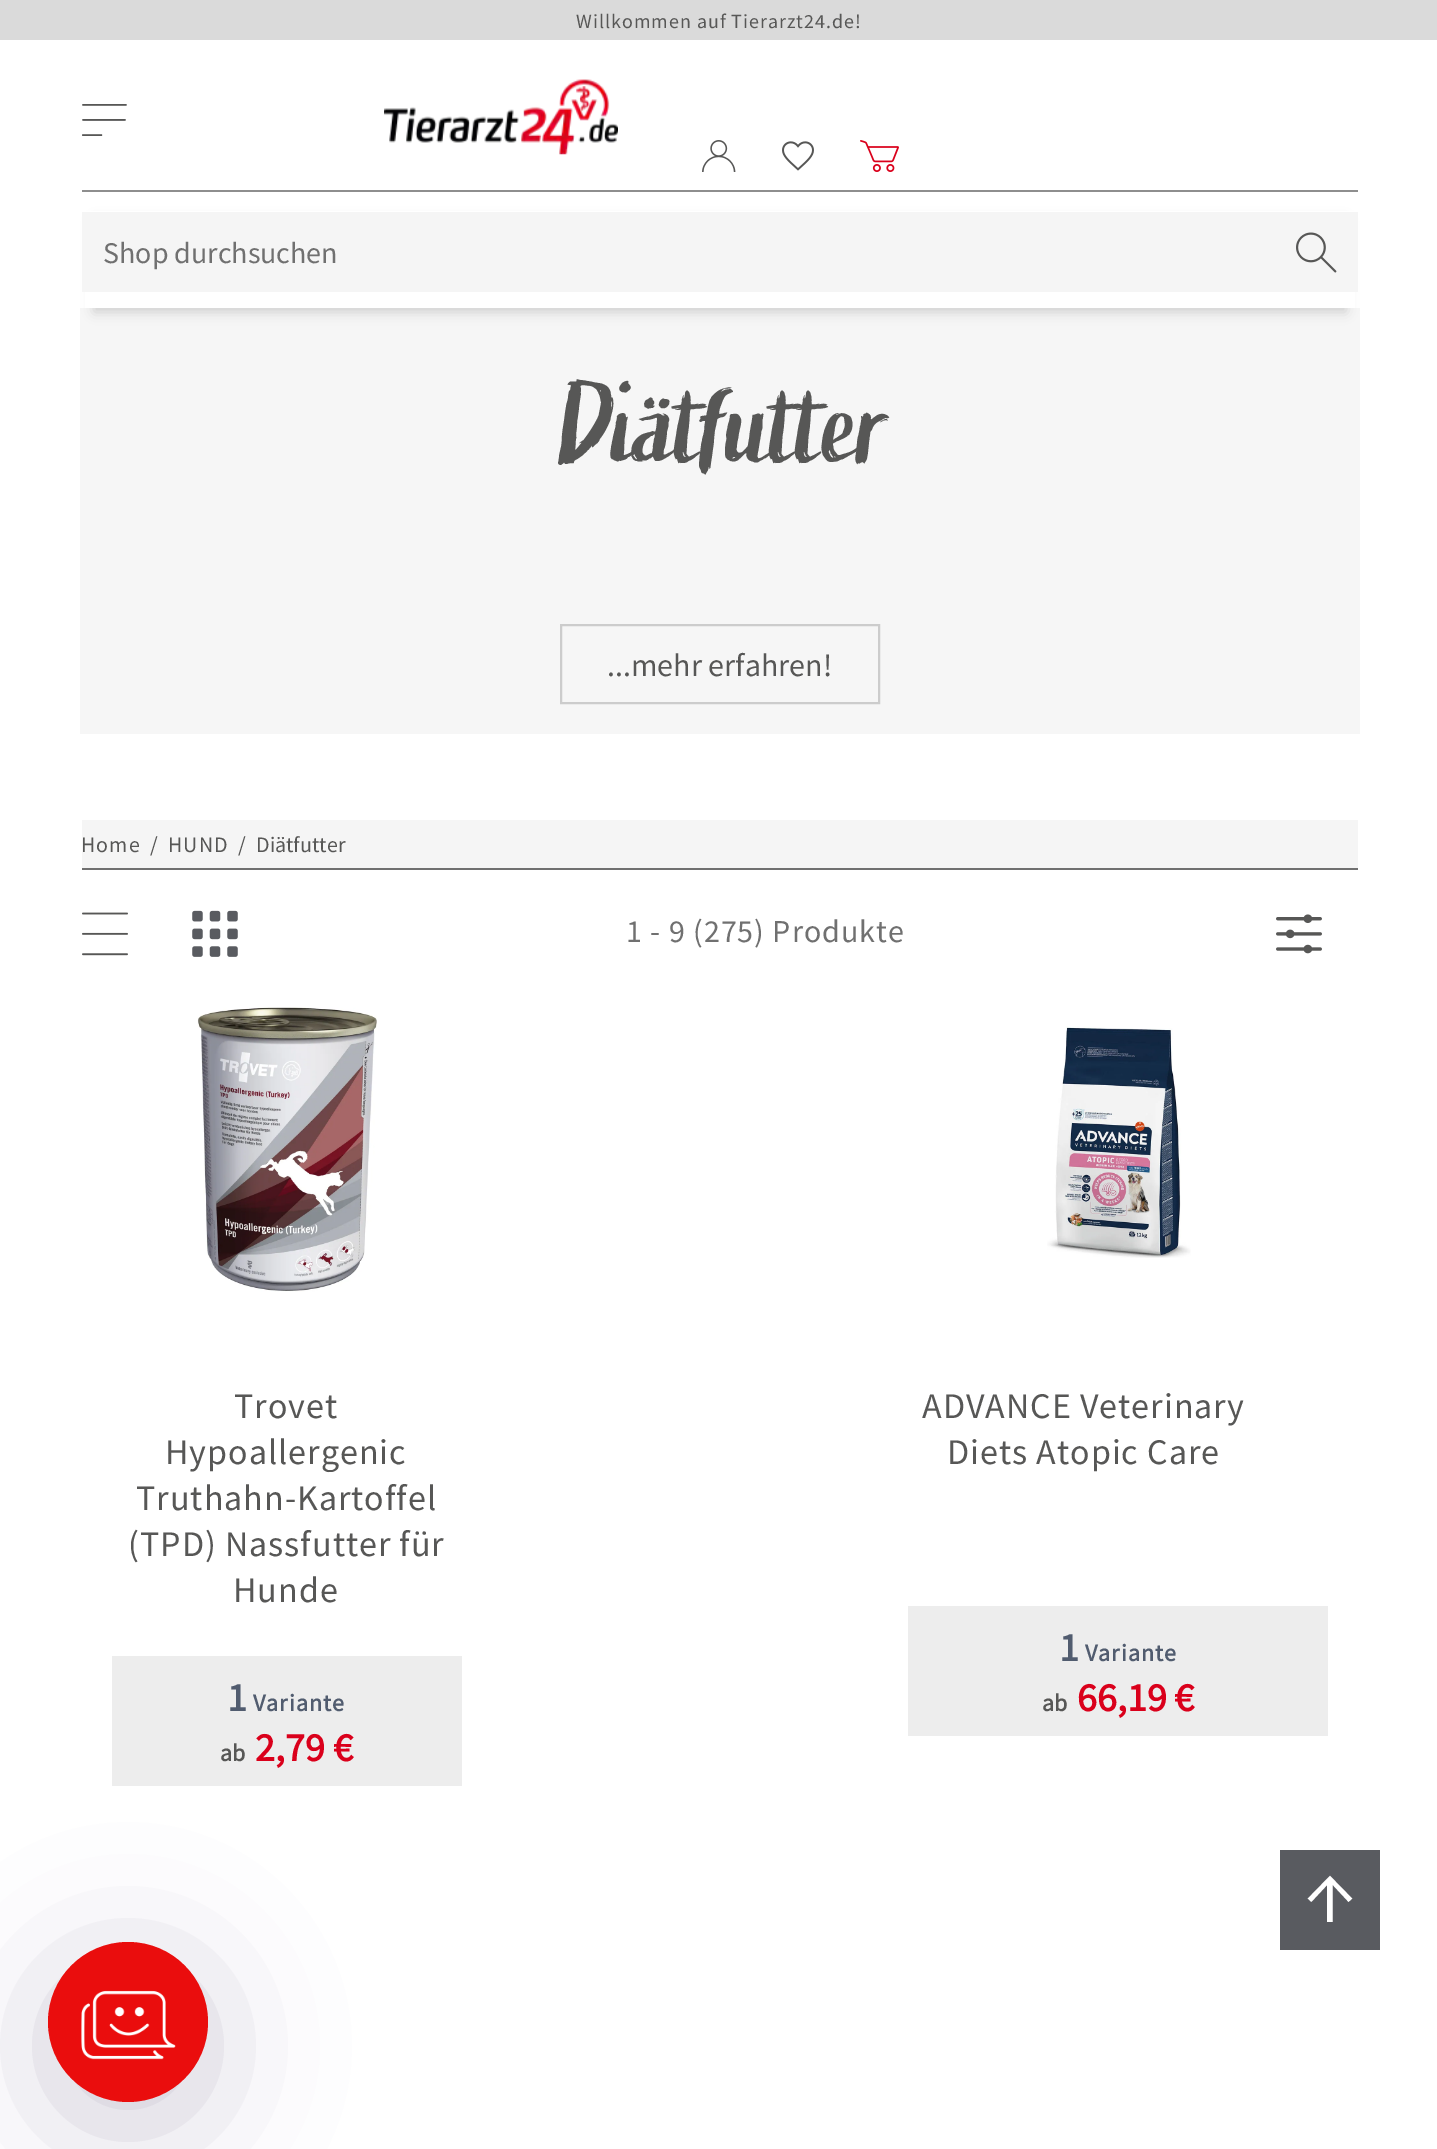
%!PS
<< /PageSize [1437 2149] /PageUsesTransparency true >> setpagedevice
/rgb { 3 { 255 div 3 1 roll } repeat setrgbcolor } def
/font { [ exch dup neg 0 0 3 -1 roll 0 0 ] selectfont } def
/alpha { dup .setfillconstantalpha .setstrokeconstantalpha } def
/circle { newpath 0 360 arc closepath } def
/roundrect { 5 dict begin { /r /h /w /y /x } { exch def } forall
  x r add y moveto x w add y 2 copy h add r arct x w add y h add x 1 index r arct
  x y h add x y r arct x y 2 copy exch w add exch r arct closepath end } def
/shadow { 12 dict begin { /a /b /q /h /w /y /x } { exch def } forall gsave /was 0 def
  9 -2 -9 { dup b mul 4 div /e exch def 1 sub .425 mul 2.718 exch exp 1 add a .99 .min exch div /now exch def
    1 1 now sub 1 was sub div sub alpha /was now def
    w h .min e 2 mul add 0 gt { x e sub y e sub w e 2 mul add h e 2 mul add
      q e add b .6 mul add w h .min 2 div e add .min 0 .max roundrect fill } if } for grestore end } def
/picture { 5 dict begin { /h /w /y /x /name } { exch def } forall
  gsave x y translate w h scale
  w h 8 [w 0 0 h 0 0] name (r) file false 3 colorimage grestore end } def
0 .pushpdf14devicefilter
0 2149 translate 1 -1 scale
4 setmiterlimit
255 255 255 rgb
0 0 1437 2149 rectfill
218 218 218 rgb
0 0 1437 40 rectfill
142 142 142 rgb
82 190 1276 2 rectfill
(img/1.rgb) 82 104 45 32 picture
(img/2.rgb) 384 79 234 76 picture
(img/3.rgb) 702 140 34 32 picture
(img/4.rgb) 782 141 32 30 picture
(img/5.rgb) 860 140 39 32 picture
246 246 246 rgb
80 308 1280 426 rectfill
0 0 0 rgb
94 220 1252 92 0 6 0.16 shadow
255 255 255 rgb
85 211 1270 97 rectfill
245 245 245 rgb
82 212 1276 80 rectfill
(img/6.rgb) 1296 232 41 41 picture
204 204 204 rgb
2 setlinewidth
561 625 318 78 rectstroke
(img/7.rgb) 82 912 46 44 picture
(img/8.rgb) 192 910 46 47 picture
(img/9.rgb) 1276 914 46 40 picture
(img/10.rgb) 197 1007 180 285 picture
237 237 237 rgb
112 1656 350 130 rectfill
(img/11.rgb) 1047 1026 144 232 picture
[
  [908 1606 420 130 237 237 237]
  [82 820 1276 48 245 245 245]
  [82 868 1276 2 112 112 112]
  [1280 1850 100 100 89 91 96]
] { aload pop rgb rectfill } forall
62 47 89 rgb
48 1966 160 160 80 64 0.24 shadow
234 13 13 rgb
128 2022 80 circle fill
(img/12.rgb) 81 1990 95 70 picture
/SourceSansPro-Regular 20 font
87 87 86 rgb
576 28 moveto 1 0 (Willkommen auf Tierarzt24.de!) ashow
/SourceSansPro-Regular 30 font
112 112 112 rgb
103 263 moveto (Shop durchsuchen) show
/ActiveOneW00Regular-Regular 112 font
87 87 86 rgb
555 460 moveto -2.25 0 (Diätfutter) ashow
/SourceSansPro-Regular 32 font
607 676 moveto (...mehr erfahren!) show
112 112 112 rgb
626 942 moveto 1 0 (1 - 9 \(275\) Produkte) ashow
/SourceSansPro-Regular 36 font
87 87 86 rgb
234 1418 moveto 1 0 (Trovet) ashow
165 1464 moveto 1 0 (Hypoallergenic) ashow
136 1510 moveto 1 0 (Truthahn-Kartoffel) ashow
128 1556 moveto 1 0 (\(TPD\) Nassfutter für) ashow
233 1602 moveto 1 0 (Hunde) ashow
/SourceSansPro-Bold 40 font
81 92 111 rgb
227 1711 moveto 1 0 (1) ashow
/SourceSansPro-Bold 24 font
253 1711 moveto 1 0 (Variante) ashow
87 87 86 rgb
220 1761 moveto (ab) show
/SourceSansPro-Bold 40 font
218 0 27 rgb
255 1761 moveto (2,79 €) show
/SourceSansPro-Regular 36 font
87 87 86 rgb
922 1418 moveto 1 0 (ADVANCE Veterinary) ashow
947 1464 moveto 1 0 (Diets Atopic Care) ashow
/SourceSansPro-Bold 40 font
81 92 111 rgb
1059 1661 moveto 1 0 (1) ashow
/SourceSansPro-Bold 24 font
1085 1661 moveto 1 0 (Variante) ashow
87 87 86 rgb
1042 1711 moveto (ab) show
/SourceSansPro-Bold 40 font
218 0 27 rgb
1077 1711 moveto (66,19 €) show
/SourceSansPro-Regular 22 font
87 87 86 rgb
81 852 moveto 1 0 (Home) ashow
150 852 moveto (/) show
168 852 moveto 1 0 (HUND) ashow
238 852 moveto (/) show
256 852 moveto (Diätfutter) show
/SourceSansPro-Regular 84 font
255 255 255 rgb
1304 1920 moveto 1 0 (↑) ashow
.poppdf14devicefilter showpage
